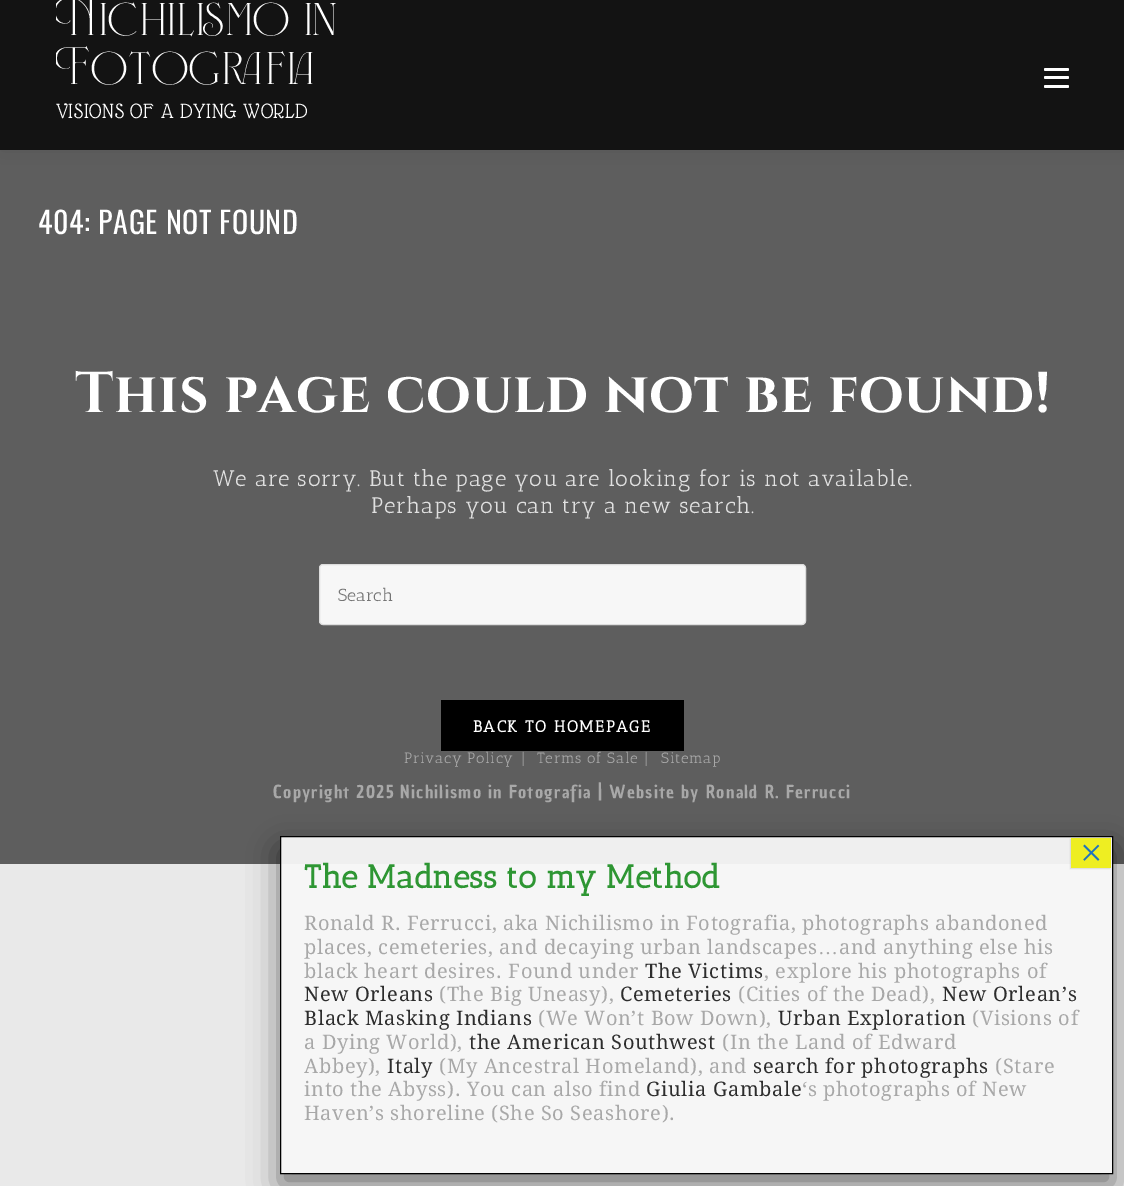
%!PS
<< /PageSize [1124 1186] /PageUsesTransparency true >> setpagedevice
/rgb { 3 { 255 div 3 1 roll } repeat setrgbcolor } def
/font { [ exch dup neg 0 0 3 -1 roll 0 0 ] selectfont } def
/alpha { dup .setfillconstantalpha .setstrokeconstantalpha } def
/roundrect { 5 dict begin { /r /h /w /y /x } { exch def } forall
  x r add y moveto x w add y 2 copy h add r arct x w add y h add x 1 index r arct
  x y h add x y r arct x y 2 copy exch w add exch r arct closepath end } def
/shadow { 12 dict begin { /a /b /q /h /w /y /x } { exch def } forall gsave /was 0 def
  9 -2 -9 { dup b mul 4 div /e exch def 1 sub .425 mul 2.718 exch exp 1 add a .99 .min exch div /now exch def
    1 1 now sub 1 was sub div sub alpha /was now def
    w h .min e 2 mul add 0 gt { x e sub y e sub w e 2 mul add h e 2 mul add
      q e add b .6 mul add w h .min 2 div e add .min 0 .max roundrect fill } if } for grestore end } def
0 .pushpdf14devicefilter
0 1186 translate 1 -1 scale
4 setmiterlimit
233 233 233 rgb
0 0 1124 1186 rectfill
94 94 94 rgb
0 150 1124 714 rectfill
0 0 0 rgb
0 0 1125 150 0 12.5 0.1 shadow
19 19 19 rgb
0 0 1124 150 rectfill
255 255 255 rgb
1044 76 25 3 1.5 roundrect fill
1044 68 25 3 1.5 roundrect fill
1044 85 25 3 1.5 roundrect fill
247 247 247 rgb
319.5 564.5 486 60 3.5 roundrect gsave fill grestore
221 221 221 rgb
stroke
0 0 0 rgb
441 700 243 51 rectfill
gsave
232 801 moveto 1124 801 lineto 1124 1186 lineto 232 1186 lineto closepath 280 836 moveto 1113 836 lineto 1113 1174 lineto 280 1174 lineto closepath eoclip newpath
2 2 2 rgb
280 849 833 337 0 15.5 0.5 shadow
grestore
0.95 alpha
247 247 247 rgb
280.5 836.5 moveto 1112.5 836.5 lineto 1112.5 1173.5 lineto 280.5 1173.5 lineto closepath fill
1 alpha
0 0 0 rgb
280.5 836.5 moveto 1112.5 836.5 lineto 1112.5 1173.5 lineto 280.5 1173.5 lineto closepath stroke
2 2 2 rgb
1070 839 40 30 0 0.5 0.1 shadow
238 238 34 rgb
1071 838 40 30 rectfill
gsave
56 0 1013 150 rectclip
/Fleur-Bold 70 font
255 255 255 rgb
56 35 moveto 1.9 0 (Nichilismo in) ashow
56 84 moveto 1.9 0 (Fotografia) ashow
grestore
/GlassAntiqua-Regular 22.5 font
255 255 255 rgb
56 118 moveto 0.62 0 (VISIONS OF A DYING WORLD) ashow
/Oswald-Regular 30 font
38 234 moveto 0.62 0 (404: PAGE NOT FOUND) ashow
/Cinzel-Bold 57.5 font
75 412 moveto 0.62 0 (This page could not be found!) ashow
/AnticSlab-Regular 22.5 font
224 224 224 rgb
213 486 moveto 0.62 0 (We are sorry. But the page you are looking for is not available.) ashow
371 513 moveto 0.62 0 (Perhaps you can try a new search.) ashow
/AnticSlab-Regular 17.5 font
117 117 117 rgb
338 601 moveto (Search) show
/AnticSlab-Bold 16.25 font
255 255 255 rgb
473 732 moveto 1.6 0 (BACK TO HOMEPAGE) ashow
/AnticSlab-Regular 15 font
168 168 168 rgb
404 763 moveto 0.62 0 (Privacy Policy) ashow
521 763 moveto 0.62 0 (|) ashow
537 763 moveto 0.62 0 (Terms of Sale) ashow
644 763 moveto 0.62 0 (|) ashow
661 763 moveto 0.62 0 (Sitemap) ashow
/ChauPhilomeneOne-Regular 17.5 font
273 798 moveto 1.25 0 (Copyright 2025 Nichilismo in Fotografia | Website by Ronald R. Ferrucci) ashow
/LiberationSerif-Regular 40 font
30 115 190 rgb
1080 866 moveto (×) show
/AnticSlab-Bold 32.5 font
46 150 51 rgb
304 888 moveto (The Madness to my Method) show
/DroidSerif-Regular 20 font
168 168 168 rgb
304 930 moveto 0.62 0 (Ronald R. Ferrucci, aka Nichilismo in Fotografia, photographs abandoned) ashow
304 954 moveto 0.62 0 (places, cemeteries, and decaying urban landscapes) ashow
/LiberationSerif-Regular 20 font
818 954 moveto 0.62 0 (…) ashow
/DroidSerif-Regular 20 font
839 954 moveto 0.62 0 (and anything else his) ashow
304 978 moveto 0.62 0 (black heart desires. Found under) ashow
45 45 45 rgb
645 978 moveto 0.62 0 (The Victims) ashow
168 168 168 rgb
764 978 moveto 0.62 0 (, explore his photographs of) ashow
45 45 45 rgb
304 1001 moveto 0.62 0 (New Orleans) ashow
168 168 168 rgb
439 1001 moveto 0.62 0 (\(The Big Uneasy\),) ashow
45 45 45 rgb
620 1001 moveto 0.62 0 (Cemeteries) ashow
168 168 168 rgb
738 1001 moveto 0.62 0 (\(Cities of the Dead\),) ashow
45 45 45 rgb
942 1001 moveto 0.62 0 (New Orlean’s) ashow
304 1025 moveto 0.62 0 (Black Masking Indians) ashow
168 168 168 rgb
538 1025 moveto 0.62 0 (\(We Won’t Bow Down\),) ashow
45 45 45 rgb
778 1025 moveto 0.62 0 (Urban Exploration) ashow
168 168 168 rgb
972 1025 moveto 0.62 0 (\(Visions of) ashow
304 1049 moveto 0.62 0 (a Dying World\),) ashow
45 45 45 rgb
469 1049 moveto 0.62 0 (the American Southwest) ashow
168 168 168 rgb
722 1049 moveto 0.62 0 (\(In the Land of Edward) ashow
304 1073 moveto 0.62 0 (Abbey\),) ashow
45 45 45 rgb
387 1073 moveto 0.62 0 (Italy) ashow
168 168 168 rgb
439 1073 moveto 0.62 0 (\(My Ancestral Homeland\), and) ashow
45 45 45 rgb
753 1073 moveto 0.62 0 (search for photographs) ashow
168 168 168 rgb
995 1073 moveto 0.62 0 (\(Stare) ashow
304 1096 moveto 0.62 0 (into the Abyss\). You can also find) ashow
45 45 45 rgb
646 1096 moveto 0.62 0 (Giulia Gambale) ashow
168 168 168 rgb
802 1096 moveto 0.62 0 (‘s photographs of New) ashow
304 1120 moveto 0.62 0 (Haven’s shoreline \(She So Seashore\).) ashow
.poppdf14devicefilter showpage
